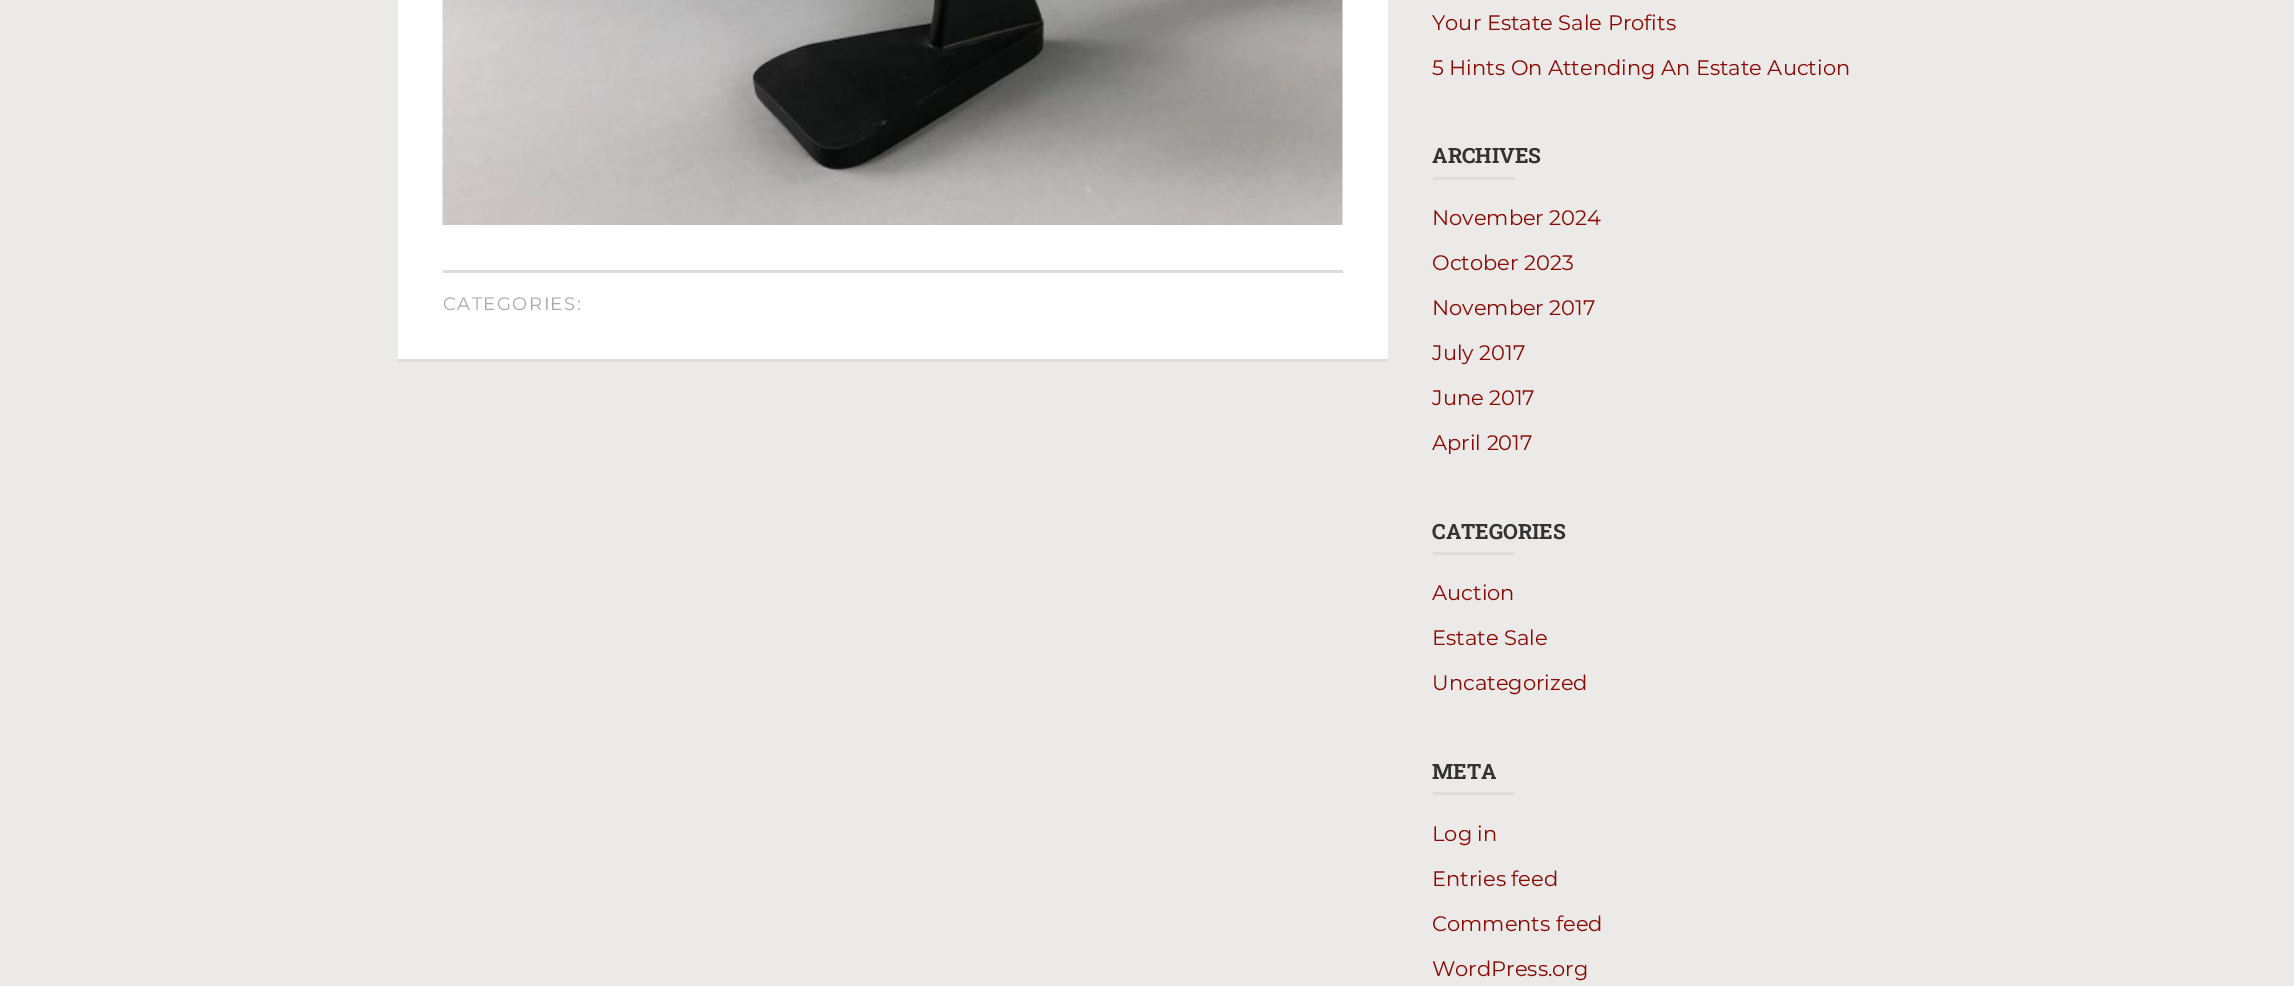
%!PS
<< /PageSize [2294 986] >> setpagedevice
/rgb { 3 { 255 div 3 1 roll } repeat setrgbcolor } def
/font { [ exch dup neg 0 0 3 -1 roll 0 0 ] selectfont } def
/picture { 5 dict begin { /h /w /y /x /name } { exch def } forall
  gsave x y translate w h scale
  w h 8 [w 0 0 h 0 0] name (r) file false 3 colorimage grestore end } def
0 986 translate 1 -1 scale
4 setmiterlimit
235 234 233 rgb
0 0 2294 986 rectfill
255 255 255 rgb
398 0 990 359 rectfill
221 221 221 rgb
398 359 990 3 rectfill
(img/1.rgb) 442 0 901 225 picture
[
  [443 270 900 3 221 221 221]
  [1433 177 82 3 221 221 221]
  [1433 552 82 3 221 221 221]
  [1433 792 82 3 221 221 221]
] { aload pop rgb rectfill } forall
/Montserrat-Regular 18 font
170 170 170 rgb
443 310 moveto 1.5 0 (CATEGORIES:) ashow
/Montserrat-Regular 21 font
139 11 4 rgb
1432 30 moveto (Your Estate Sale Profits) show
1432 75 moveto (5 Hints On Attending An Estate Auction) show
/RobotoSlab-Bold 21 font
51 51 51 rgb
1432 163 moveto (ARCHIVES) show
/Montserrat-Regular 21 font
139 11 4 rgb
[
  [(November 2024) 1432 225]
  [(October 2023) 1432 270]
  [(November 2017) 1432 315]
  [(July 2017) 1432 360]
  [(June 2017) 1432 405]
  [(April 2017) 1432 450]
] { aload pop moveto show } forall
/RobotoSlab-Bold 21 font
51 51 51 rgb
1432 539 moveto (CATEGORIES) show
/Montserrat-Regular 21 font
139 11 4 rgb
[
  [(Auction) 1432 600]
  [(Estate Sale) 1432 645]
  [(Uncategorized) 1432 690]
] { aload pop moveto show } forall
/RobotoSlab-Bold 21 font
51 51 51 rgb
1432 779 moveto (META) show
/Montserrat-Regular 21 font
139 11 4 rgb
[
  [(Log in) 1432 841]
  [(Entries feed) 1432 886]
  [(Comments feed) 1432 931]
  [(WordPress.org) 1432 976]
] { aload pop moveto show } forall
showpage
